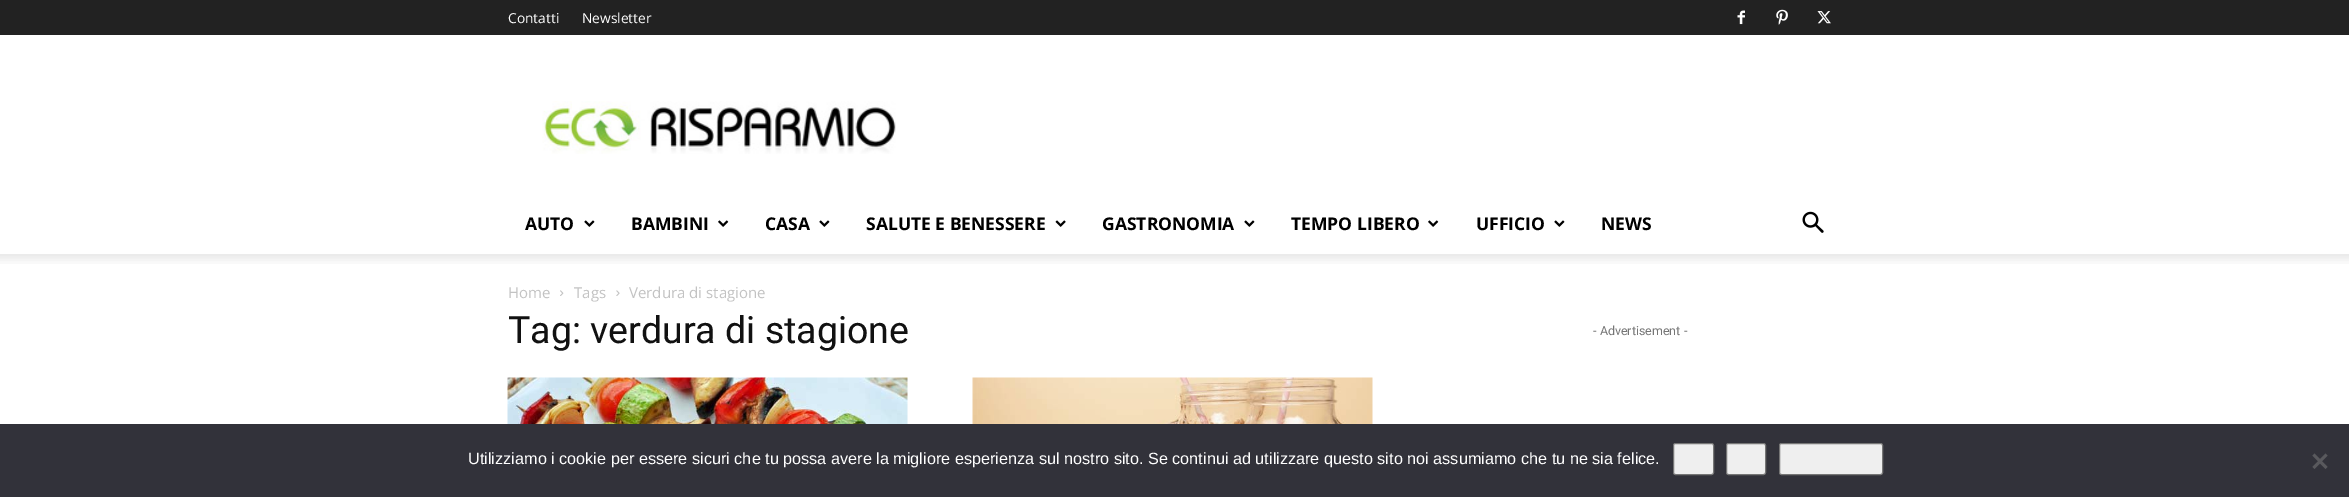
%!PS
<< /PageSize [2349 497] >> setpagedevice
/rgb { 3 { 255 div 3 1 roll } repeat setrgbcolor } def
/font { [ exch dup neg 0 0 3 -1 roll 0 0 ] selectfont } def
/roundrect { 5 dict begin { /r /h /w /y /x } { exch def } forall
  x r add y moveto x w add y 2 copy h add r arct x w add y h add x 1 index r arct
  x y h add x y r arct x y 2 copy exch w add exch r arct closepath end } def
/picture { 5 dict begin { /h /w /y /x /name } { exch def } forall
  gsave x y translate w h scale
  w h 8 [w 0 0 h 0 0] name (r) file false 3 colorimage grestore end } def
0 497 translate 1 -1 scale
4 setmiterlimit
255 255 255 rgb
0 0 2349 497 rectfill
34 34 34 rgb
0 0 2349 35 rectfill
(img/1.rgb) 1737 10 8 15 picture
(img/2.rgb) 1776 9 12 16 picture
(img/3.rgb) 1817 11 14 13 picture
(img/4.rgb) 542 101 354 53 picture
(img/5.rgb) 584 220 11 7 picture
(img/6.rgb) 718 220 11 7 picture
(img/5.rgb) 819 220 11 7 picture
(img/7.rgb) 1055 220 11 7 picture
(img/5.rgb) 1244 220 11 7 picture
(img/6.rgb) 1428 220 11 7 picture
(img/5.rgb) 1554 220 11 7 picture
(img/8.rgb) 1802 211 22 22 picture
(img/9.rgb) 0 254 2349 10 picture
(img/10.rgb) 560 290 4 6 picture
(img/11.rgb) 616 290 4 6 picture
(img/12.rgb) 507 377 401 47 picture
(img/13.rgb) 972 377 401 47 picture
50 50 58 rgb
0 424 2349 73 rectfill
239 239 239 rgb
1673.5 443.5 40 31 2 roundrect gsave fill grestore
118 118 118 rgb
stroke
239 239 239 rgb
1726.5 443.5 39 31 2 roundrect gsave fill grestore
118 118 118 rgb
stroke
239 239 239 rgb
1779.5 443.5 103 31 2 roundrect gsave fill grestore
118 118 118 rgb
stroke
89 89 93 rgb
2325.5 453.5 moveto 2327.5 455.5 lineto 2314.5 469 lineto 2312.5 467 lineto closepath fill
2312.5 455.5 moveto 2314.5 453.5 lineto 2327.5 467 lineto 2325.5 469 lineto closepath fill
/OpenSans-Regular 13.75 font
255 255 255 rgb
508 23 moveto (Contatti) show
582 23 moveto (Newsletter) show
/OpenSans-Bold 17.5 font
0 0 0 rgb
[
  [(AUTO) 525 230]
  [(BAMBINI) 631 230]
  [(CASA) 765 230]
  [(SALUTE E BENESSERE) 866 230]
  [(GASTRONOMIA) 1102 230]
  [(TEMPO LIBERO) 1291 230]
  [(UFFICIO) 1476 230]
  [(NEWS) 1601 230]
] { aload pop moveto show } forall
/OpenSans-Regular 15 font
195 195 195 rgb
[
  [(Home) 508 298]
  [(Tags) 574 298]
  [(Verdura di stagione) 629 298]
] { aload pop moveto show } forall
/Roboto-Regular 37.5 font
17 17 17 rgb
508 343 moveto (Tag: verdura di stagione) show
/Roboto-Regular 12.5 font
118 118 118 rgb
1593 335 moveto (- Advertisement -) show
/LiberationSans-Regular 16.25 font
255 255 255 rgb
468 464 moveto (Utilizziamo i cookie per essere sicuri che tu possa avere la migliore esperienza sul nostro sito. Se continui ad utilizzare questo sito noi assumiamo che tu ne sia felice.) show
showpage
